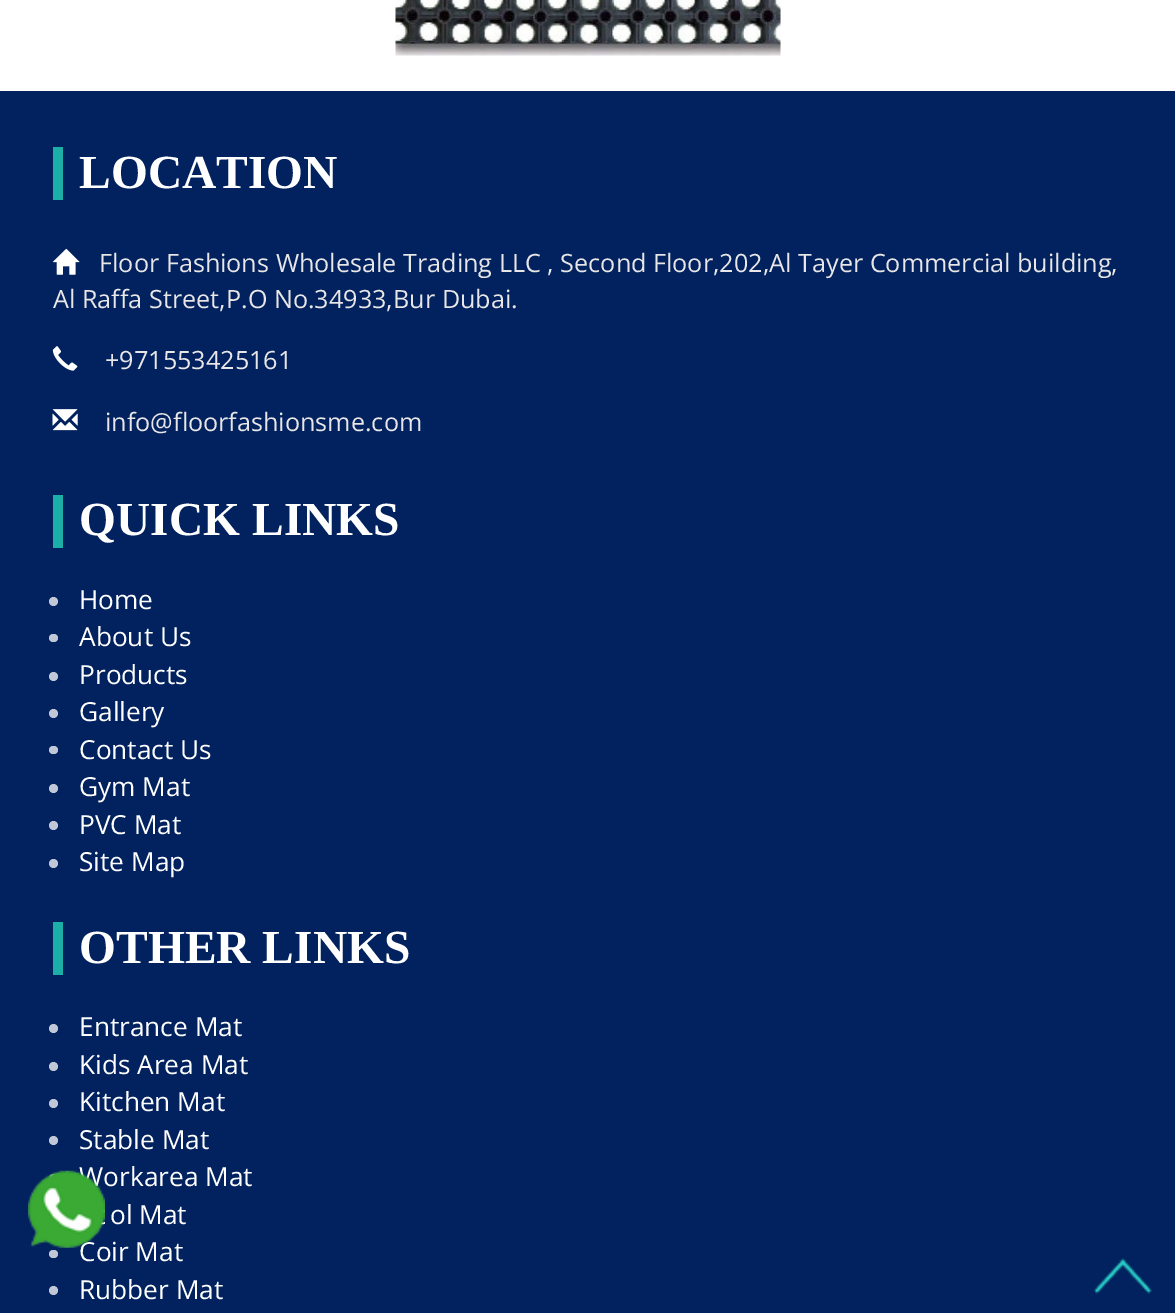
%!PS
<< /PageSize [1175 1313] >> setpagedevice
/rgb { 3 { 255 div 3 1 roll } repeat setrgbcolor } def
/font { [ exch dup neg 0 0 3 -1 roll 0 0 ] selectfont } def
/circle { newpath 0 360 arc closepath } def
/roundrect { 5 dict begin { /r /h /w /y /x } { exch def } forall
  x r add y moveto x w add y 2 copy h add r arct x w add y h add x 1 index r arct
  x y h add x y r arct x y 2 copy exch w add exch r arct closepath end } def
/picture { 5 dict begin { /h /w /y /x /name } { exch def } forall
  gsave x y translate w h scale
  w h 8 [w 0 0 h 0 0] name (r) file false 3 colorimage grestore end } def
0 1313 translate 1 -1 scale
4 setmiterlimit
255 255 255 rgb
0 0 1175 1313 rectfill
(img/1.rgb) 395 0 386 56 picture
1 34 94 rgb
0 91 1175 1222 rectfill
27 175 167 rgb
53 147 10 53 rectfill
(img/2.rgb) 52 248 28 27 picture
(img/3.rgb) 52 346 26 25 picture
(img/4.rgb) 52 409 26 22 picture
53 495 10 53 rectfill
192 200 215 rgb
53.5 601.5 4.5 circle fill
49 634 9 8 4 roundrect fill
53.5 676.5 4.5 circle fill
53.5 713.5 4.5 circle fill
49 746 9 8 4 roundrect fill
53.5 788.5 4.5 circle fill
53.5 825.5 4.5 circle fill
53.5 863.5 4.5 circle fill
27 175 167 rgb
53 922 10 53 rectfill
192 200 215 rgb
53.5 1028.5 4.5 circle fill
53.5 1066.5 4.5 circle fill
53.5 1103.5 4.5 circle fill
53.5 1140.5 4.5 circle fill
53.5 1178.5 4.5 circle fill
49 1250 9 8 4 roundrect fill
53.5 1290.5 4.5 circle fill
(img/6.rgb) 1093 1258 59 36 picture
/LiberationSerif-Bold 47.5 font
255 255 255 rgb
79 188 moveto (LOCATION) show
/OpenSans-Regular 25.2 font
232 230 230 rgb
[
  [(Floor Fashions Wholesale Trading LLC , Second Floor,202,Al Tayer Commercial building,) 99 272]
  [(Al Raffa Street,P.O No.34933,Bur Dubai.) 53 308]
  [(+971553425161) 105 369]
  [(info@floorfashionsme.com) 105 431]
] { aload pop moveto show } forall
/LiberationSerif-Bold 47.5 font
255 255 255 rgb
79 535 moveto (QUICK LINKS) show
/OpenSans-Regular 26.25 font
[
  [(Home) 79 609]
  [(About Us) 79 646]
  [(Products) 79 684]
  [(Gallery) 79 721]
  [(Contact Us) 79 759]
  [(Gym Mat) 79 796]
  [(PVC Mat) 79 834]
  [(Site Map) 79 871]
] { aload pop moveto show } forall
/LiberationSerif-Bold 47.5 font
79 963 moveto (OTHER LINKS) show
/OpenSans-Regular 26.25 font
[
  [(Entrance Mat) 79 1036]
  [(Kids Area Mat) 79 1074]
  [(Kitchen Mat) 79 1111]
  [(Stable Mat) 79 1149]
  [(Workarea Mat) 79 1186]
  [(ol Mat) 110 1224]
  [(Coir Mat) 79 1261]
  [(Rubber Mat) 79 1299]
] { aload pop moveto show } forall
(img/5.rgb) 28 1170 77 78 picture
showpage
